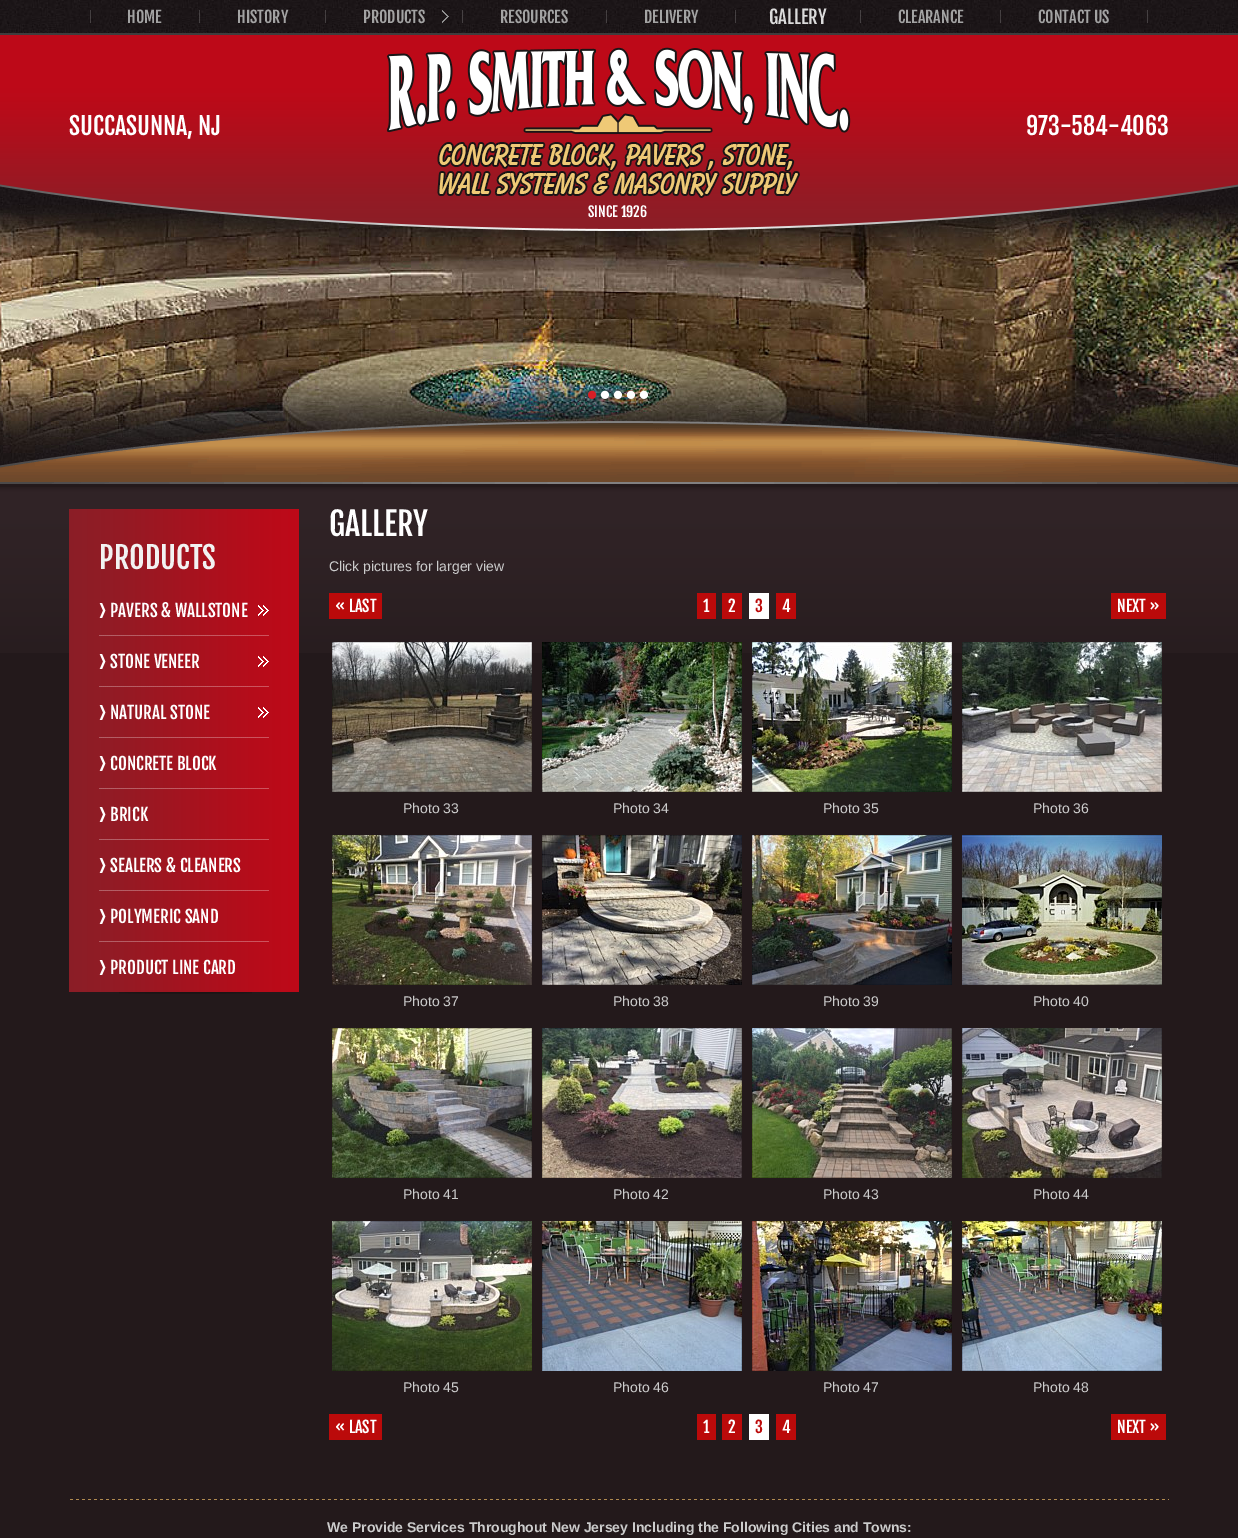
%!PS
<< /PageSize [1238 1538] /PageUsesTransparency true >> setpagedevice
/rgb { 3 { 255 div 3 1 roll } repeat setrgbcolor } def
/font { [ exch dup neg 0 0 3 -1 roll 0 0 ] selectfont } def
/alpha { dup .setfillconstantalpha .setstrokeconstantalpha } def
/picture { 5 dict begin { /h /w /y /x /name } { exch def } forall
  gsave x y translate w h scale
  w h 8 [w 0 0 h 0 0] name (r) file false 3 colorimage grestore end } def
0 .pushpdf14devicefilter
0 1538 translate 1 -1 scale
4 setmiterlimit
35 25 27 rgb
0 0 1238 1538 rectfill
(img/1.rgb) 0 0 1238 33 picture
0.18 alpha
[
  [90 10 1 13 255 255 255]
  [199 10 1 13 255 255 255]
  [325 10 1 13 255 255 255]
  [462 10 1 13 255 255 255]
] { aload pop rgb rectfill } forall
1 alpha
(img/2.rgb) 442 10 7 13 picture
0.18 alpha
[
  [606 10 1 13 255 255 255]
  [735 10 1 13 255 255 255]
  [860 10 1 13 255 255 255]
  [1000 10 1 13 255 255 255]
  [1147 10 1 13 255 255 255]
] { aload pop rgb rectfill } forall
1 alpha
(img/10.rgb) 0 186 1238 280 picture
(img/3.rgb) 0 33 1238 451 picture
(img/4.rgb) 386 47 465 151 picture
(img/5.rgb) 588 390 9 9 picture
(img/6.rgb) 600 390 10 9 picture
(img/7.rgb) 613 390 10 9 picture
(img/8.rgb) 626 390 10 9 picture
(img/9.rgb) 639 390 10 9 picture
(img/11.rgb) 0 487 1238 166 picture
(img/12.rgb) 69 509 230 483 picture
(img/13.rgb) 99 603 170 33 picture
(img/14.rgb) 258 605 11 11 picture
(img/13.rgb) 99 654 170 33 picture
(img/14.rgb) 258 656 11 11 picture
(img/13.rgb) 99 705 170 33 picture
(img/14.rgb) 258 707 11 11 picture
(img/13.rgb) 99 756 170 33 picture
(img/13.rgb) 99 807 170 33 picture
(img/13.rgb) 99 858 170 33 picture
(img/13.rgb) 99 909 170 33 picture
(img/15.rgb) 99 960 7 15 picture
(img/16.rgb) 119 992 133 2 picture
[
  [329 593 53 26 187 10 10]
  [697 593 19 26 187 10 10]
  [722 593 20 26 187 10 10]
  [749 593 20 26 255 255 255]
  [776 593 20 26 187 10 10]
  [1111 593 55 26 187 10 10]
] { aload pop rgb rectfill } forall
(img/17.rgb) 332 642 200 150 picture
(img/18.rgb) 542 642 200 150 picture
(img/19.rgb) 752 642 200 150 picture
(img/20.rgb) 962 642 200 150 picture
(img/21.rgb) 332 835 200 150 picture
(img/22.rgb) 542 835 200 150 picture
(img/23.rgb) 752 835 200 150 picture
(img/24.rgb) 962 835 200 150 picture
(img/25.rgb) 332 1028 200 150 picture
(img/26.rgb) 542 1028 200 150 picture
(img/27.rgb) 752 1028 200 150 picture
(img/28.rgb) 962 1028 200 150 picture
(img/29.rgb) 332 1221 200 150 picture
(img/30.rgb) 542 1221 200 150 picture
(img/31.rgb) 752 1221 200 150 picture
(img/32.rgb) 962 1221 200 150 picture
[
  [329 1414 53 26 187 10 10]
  [697 1414 19 26 187 10 10]
  [722 1414 20 26 187 10 10]
  [749 1414 20 26 255 255 255]
  [776 1414 20 26 187 10 10]
  [1111 1414 55 26 187 10 10]
] { aload pop rgb rectfill } forall
(img/33.rgb) 70 1499 1099 1 picture
/FjallaOne-Regular 16 font
163 163 163 rgb
[
  [(HOME) 127 23]
  [(HISTORY) 237 23]
  [(PRODUCTS) 363 23]
  [(RESOURCES) 500 23]
  [(DELIVERY) 644 23]
] { aload pop moveto show } forall
/FjallaOne-Regular 18.5 font
219 219 219 rgb
769 24 moveto (GALLERY) show
/FjallaOne-Regular 16 font
163 163 163 rgb
898 23 moveto (CLEARANCE) show
1038 23 moveto (CONTACT US) show
/FjallaOne-Regular 24 font
255 255 255 rgb
69 135 moveto (SUCCASUNNA, NJ) show
1026 135 moveto (973-584-4063) show
/FjallaOne-Regular 14 font
588 217 moveto (SINCE 1926) show
/FjallaOne-Regular 30 font
242 242 242 rgb
99 569 moveto (PRODUCTS) show
/FjallaOne-Regular 17 font
255 255 255 rgb
[
  [(PAVERS & WALLSTONE) 110 617]
  [(STONE VENEER) 110 668]
  [(NATURAL STONE) 110 719]
  [(CONCRETE BLOCK) 110 770]
  [(BRICK) 110 821]
  [(SEALERS & CLEANERS) 110 872]
  [(POLYMERIC SAND) 110 923]
  [(PRODUCT LINE CARD) 110 974]
] { aload pop moveto show } forall
/FjallaOne-Regular 32 font
329 536 moveto (GALLERY) show
/LiberationSans-Regular 14 font
204 204 204 rgb
329 571 moveto (Click pictures for larger view) show
/FjallaOne-Regular 16 font
255 255 255 rgb
[
  [(« LAST) 335 612]
  [(1) 703 612]
  [(2) 728 612]
] { aload pop moveto show } forall
187 10 10 rgb
755 612 moveto (3) show
255 255 255 rgb
782 612 moveto (4) show
1117 612 moveto (NEXT ») show
/LiberationSans-Regular 14 font
204 204 204 rgb
[
  [(Photo 33) 403 813]
  [(Photo 34) 613 813]
  [(Photo 35) 823 813]
  [(Photo 36) 1033 813]
  [(Photo 37) 403 1006]
  [(Photo 38) 613 1006]
  [(Photo 39) 823 1006]
  [(Photo 40) 1033 1006]
  [(Photo 41) 403 1199]
  [(Photo 42) 613 1199]
  [(Photo 43) 823 1199]
  [(Photo 44) 1033 1199]
  [(Photo 45) 403 1392]
  [(Photo 46) 613 1392]
  [(Photo 47) 823 1392]
  [(Photo 48) 1033 1392]
] { aload pop moveto show } forall
/FjallaOne-Regular 16 font
255 255 255 rgb
[
  [(« LAST) 335 1433]
  [(1) 703 1433]
  [(2) 728 1433]
] { aload pop moveto show } forall
187 10 10 rgb
755 1433 moveto (3) show
255 255 255 rgb
782 1433 moveto (4) show
1117 1433 moveto (NEXT ») show
/LiberationSans-Bold 14 font
204 204 204 rgb
327 1532 moveto (We Provide Services Throughout New Jersey Including the Following Cities and Towns:) show
.poppdf14devicefilter showpage
